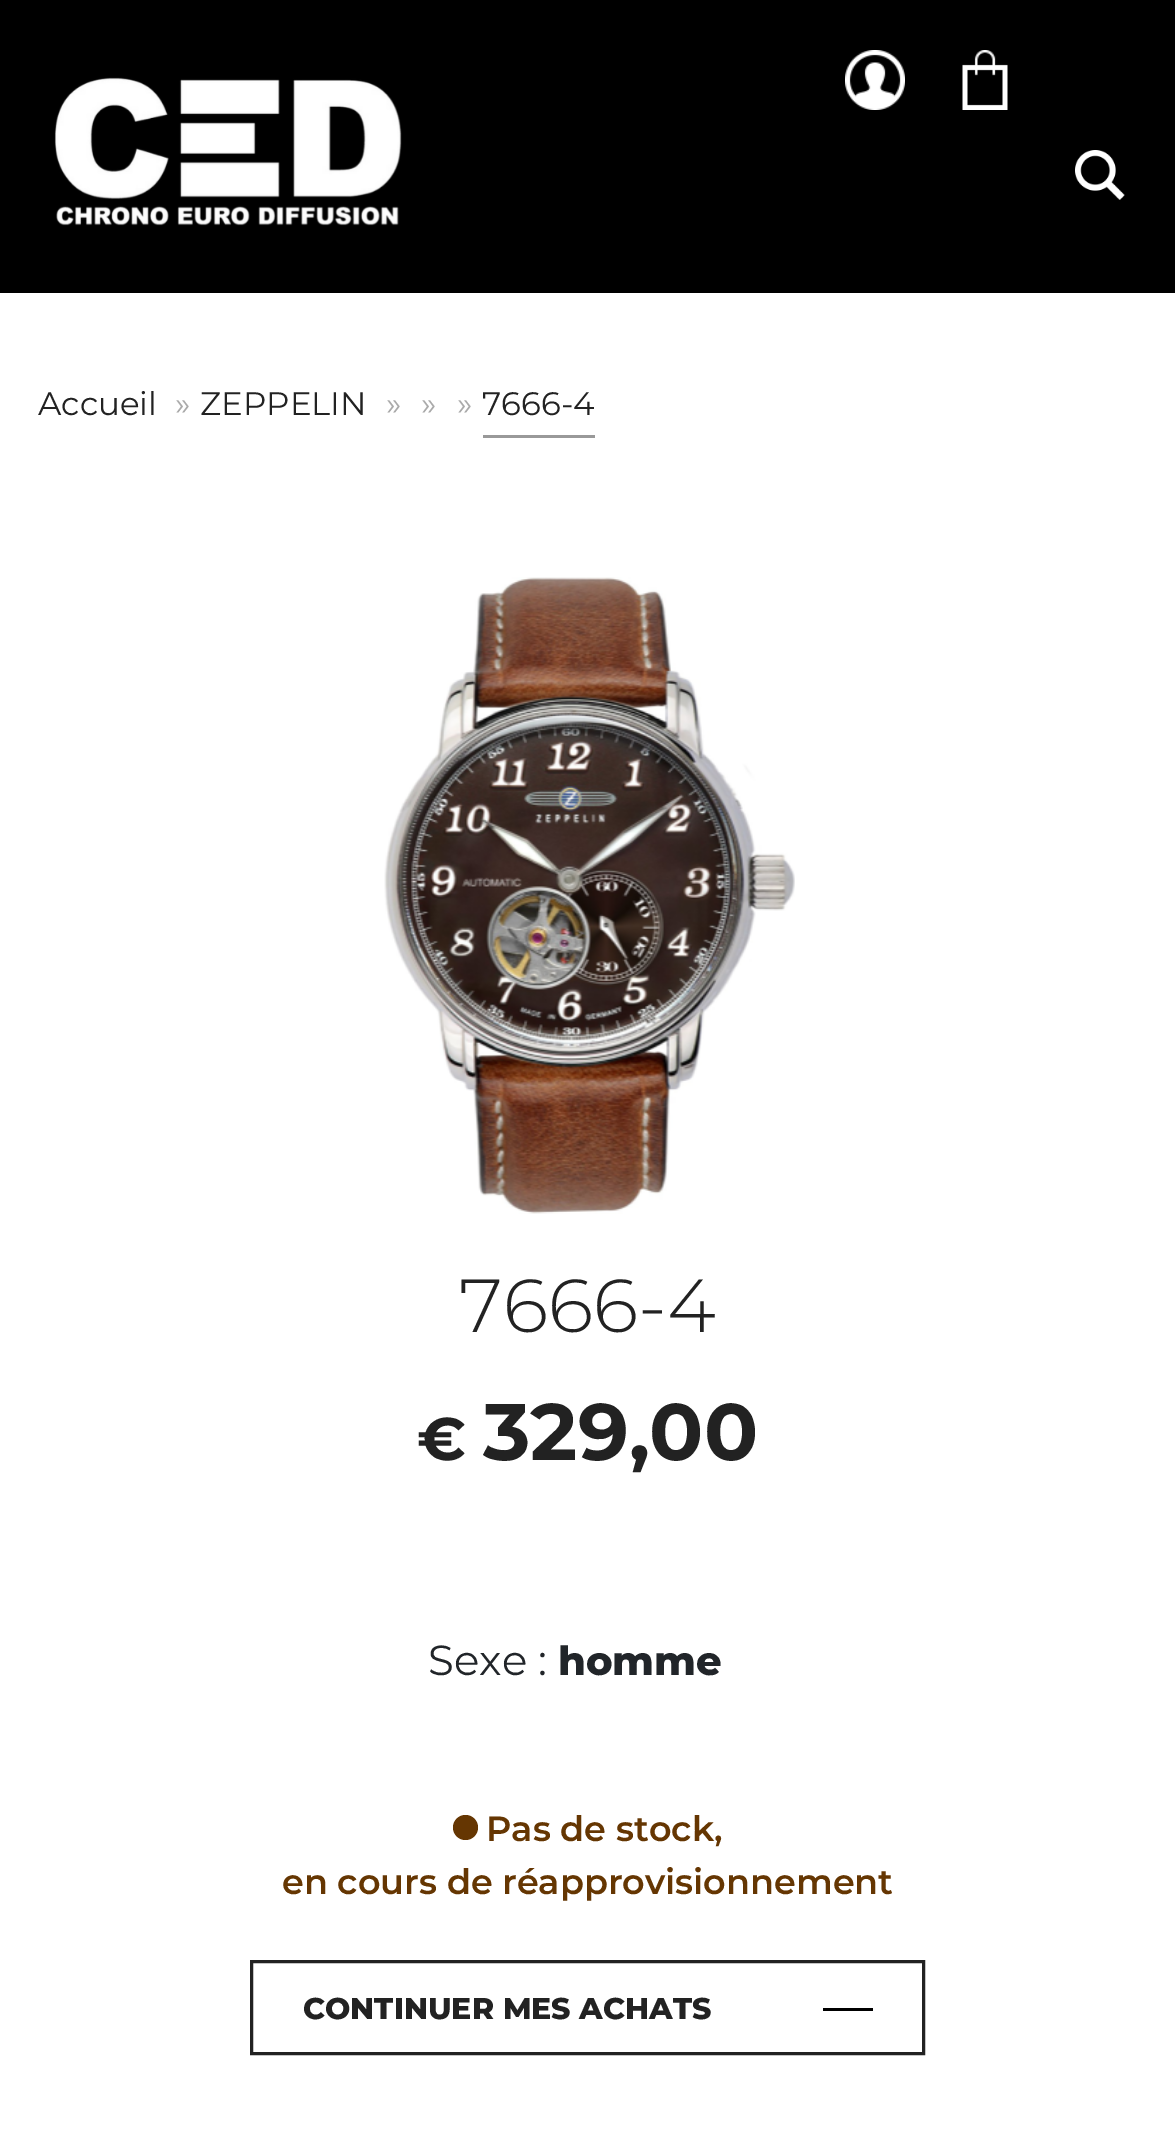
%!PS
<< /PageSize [1175 2129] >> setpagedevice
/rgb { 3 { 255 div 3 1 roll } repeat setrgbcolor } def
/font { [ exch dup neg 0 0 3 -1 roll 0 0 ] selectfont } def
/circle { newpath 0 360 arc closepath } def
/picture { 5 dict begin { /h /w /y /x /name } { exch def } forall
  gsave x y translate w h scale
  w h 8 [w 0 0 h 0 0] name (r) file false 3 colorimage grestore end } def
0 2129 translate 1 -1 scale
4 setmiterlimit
255 255 255 rgb
0 0 1175 2129 rectfill
0 0 0 rgb
0 0 1175 293 rectfill
(img/1.rgb) 54 77 348 149 picture
(img/2.rgb) 845 50 60 60 picture
(img/3.rgb) 962 50 46 60 picture
(img/4.rgb) 1075 150 50 50 picture
153 153 153 rgb
483 435 112 3 rectfill
(img/5.rgb) 384 577 411 637 picture
101 54 2 rgb
465.5 1827.5 12.5 circle fill
34 34 34 rgb
3 setlinewidth
251.5 1961.5 672 92 rectstroke
0 0 0 rgb
823 2008 50 3 rectfill
/Montserrat-Regular 32.5 font
34 34 34 rgb
38 415 moveto (Accueil) show
170 170 170 rgb
175 415 moveto (») show
34 34 34 rgb
200 415 moveto (ZEPPELIN) show
170 170 170 rgb
[
  [(») 386 415]
  [(») 421 415]
  [(») 457 415]
] { aload pop moveto show } forall
34 34 34 rgb
482 415 moveto (7666-4) show
/Montserrat-Light 75 font
459 1332 moveto (7666-4) show
/Montserrat-Bold 60 font
417 1460 moveto (€) show
/Montserrat-Bold 80 font
483 1460 moveto (329,00) show
/Montserrat-Regular 42 font
33 37 41 rgb
428 1675 moveto (Sexe :) show
/Montserrat-ExtraBold 40 font
558 1675 moveto (homme) show
/Montserrat-SemiBold 35 font
101 54 2 rgb
486 1841 moveto (Pas de stock,) show
282 1894 moveto (en cours de réapprovisionnement) show
/Montserrat-ExtraBold 30 font
34 34 34 rgb
303 2019 moveto (CONTINUER MES ACHATS) show
showpage
